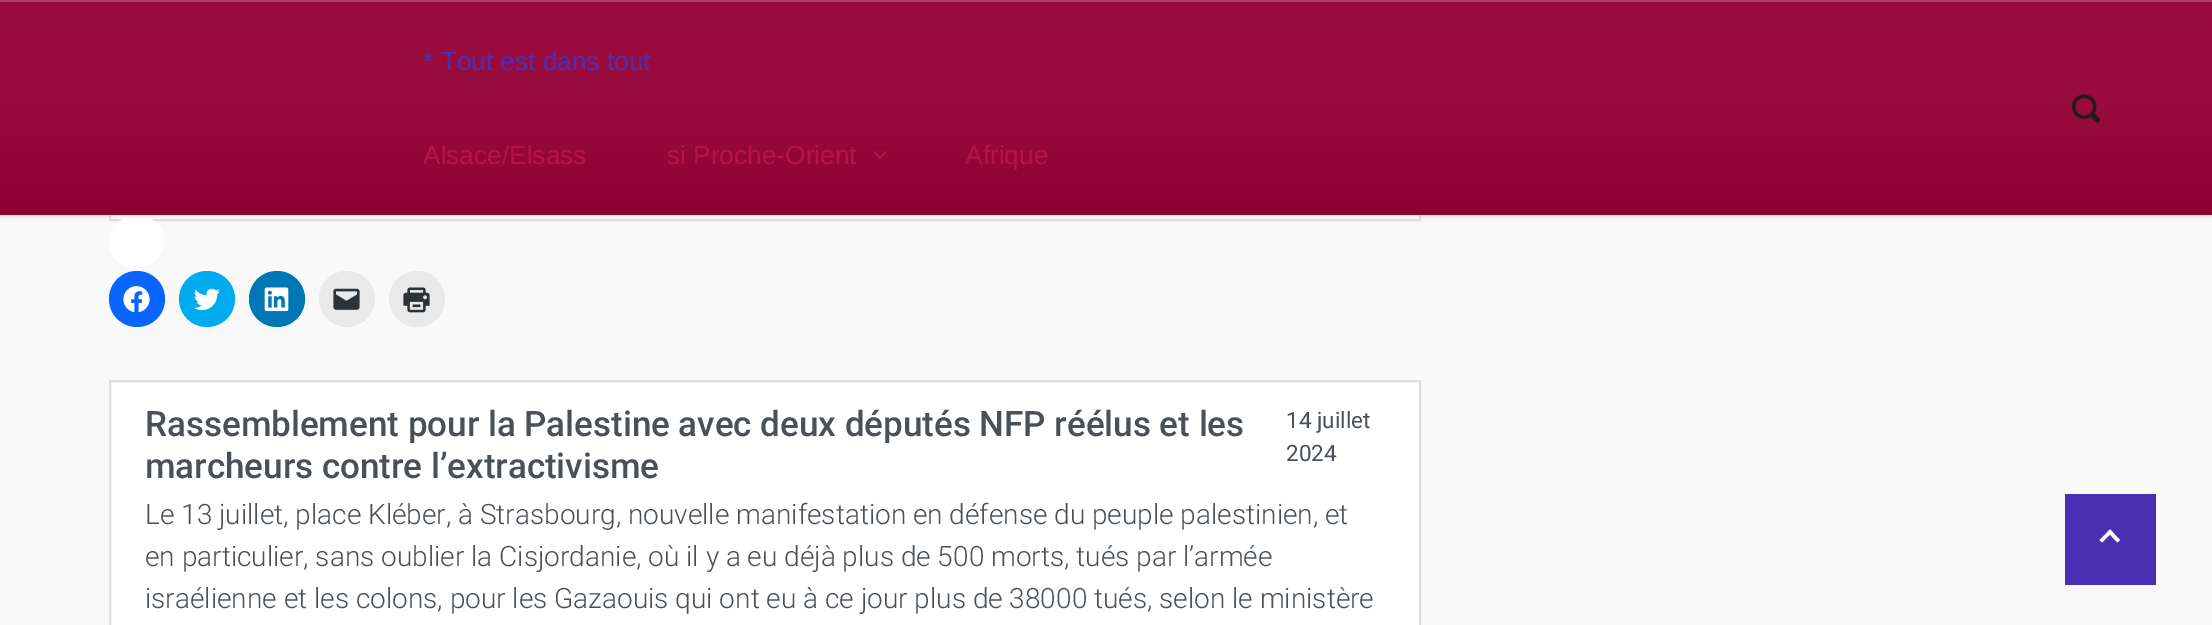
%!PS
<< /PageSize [2212 625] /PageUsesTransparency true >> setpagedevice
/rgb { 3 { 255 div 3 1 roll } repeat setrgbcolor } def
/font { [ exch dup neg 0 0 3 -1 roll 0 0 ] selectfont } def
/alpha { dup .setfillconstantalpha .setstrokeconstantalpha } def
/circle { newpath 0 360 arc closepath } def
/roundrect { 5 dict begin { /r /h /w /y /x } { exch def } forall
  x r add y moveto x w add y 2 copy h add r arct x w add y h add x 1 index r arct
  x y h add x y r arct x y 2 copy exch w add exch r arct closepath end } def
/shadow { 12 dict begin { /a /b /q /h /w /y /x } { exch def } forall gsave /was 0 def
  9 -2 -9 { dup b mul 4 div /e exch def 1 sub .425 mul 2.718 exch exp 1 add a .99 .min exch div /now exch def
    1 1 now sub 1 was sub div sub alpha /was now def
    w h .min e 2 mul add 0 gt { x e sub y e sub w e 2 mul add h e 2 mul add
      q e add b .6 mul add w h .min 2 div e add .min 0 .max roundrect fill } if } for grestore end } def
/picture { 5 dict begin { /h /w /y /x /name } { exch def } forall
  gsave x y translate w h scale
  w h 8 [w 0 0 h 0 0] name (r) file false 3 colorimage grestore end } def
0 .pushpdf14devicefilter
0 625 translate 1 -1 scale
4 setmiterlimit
249 249 249 rgb
0 0 2212 625 rectfill
255 255 255 rgb
109 215 1312 6 rectfill
0.12 alpha
0 0 0 rgb
2 setlinewidth
110 176 1310 44 rectstroke
1 alpha
255 255 255 rgb
136.5 215.5 moveto 152 215.5 164.5 227 164.5 241.5 curveto 164.5 256 152 267.5 136.5 267.5 curveto 121 267.5 108.5 256 108.5 241.5 curveto 108.5 227 121 215.5 136.5 215.5 curveto closepath fill
0 0 0 rgb
0 2 2212 215 0 2 0.1 shadow
gsave 0 2 moveto 2212 2 lineto 2212 215 lineto 0 215 lineto closepath clip newpath
<< /ShadingType 2 /ColorSpace /DeviceRGB /Coords [1106 0 1106 215] /Extend [true true] /Function << /FunctionType 3 /Domain [0 1] /Functions [<< /FunctionType 2 /Domain [0 1] /C0 [0.6 0.043 0.239] /C1 [0.6 0.043 0.239] /N 1 >> << /FunctionType 2 /Domain [0 1] /C0 [0.6 0.043 0.239] /C1 [0.553 0 0.192] /N 1 >>] /Bounds [0.5] /Encode [0 1 0 1] >> >> shfill grestore
173 60 100 rgb
0 0 2212 2 rectfill
180 20 71 rgb
885.5 151 moveto 887 152 lineto 880 159 lineto 879 157.5 lineto closepath fill
874.5 151 moveto 881.5 157.5 lineto 880 159 lineto 873.5 152 lineto closepath fill
(img/1.rgb) 2072 94 28 29 picture
8 102 255 rgb
137 299 28 circle fill
(img/2.rgb) 123 286 27 27 picture
0 172 238 rgb
207 299 28 circle fill
(img/3.rgb) 193 288 27 23 picture
0 119 181 rgb
277 299 28 circle fill
(img/4.rgb) 264 287 25 25 picture
233 233 233 rgb
347 299 28 circle fill
(img/5.rgb) 333 288 27 22 picture
417 299 28 circle fill
(img/6.rgb) 403 287 27 26 picture
255 255 255 rgb
110 381 moveto 1420 381 lineto 1420 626 lineto 110 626 lineto closepath gsave fill grestore
223 223 223 rgb
stroke
73 47 177 rgb
2065 494 91 91 rectfill
255 255 255 rgb
2099.5 540 moveto 2110 529.5 lineto 2112.5 532 lineto 2102 542.5 lineto closepath fill
2107.5 532 moveto 2110 529.5 lineto 2120 540 lineto 2117.5 542.5 lineto closepath fill
/LiberationSans-Regular 26.25 font
73 47 177 rgb
423 70 moveto (* Tout est dans tout) show
180 20 71 rgb
[
  [(Alsace/Elsass) 423 164]
  [(si Proche-Orient) 667 164]
  [(Afrique) 965 164]
] { aload pop moveto show } forall
/Roboto-Medium 35 font
73 80 87 rgb
145 436 moveto (Rassemblement pour la Palestine avec deux députés NFP réélus et les) show
145 478 moveto (marcheurs contre l’extractivisme) show
/Roboto-Regular 22.5 font
1286 428 moveto (14 juillet) show
1286 461 moveto (2024) show
/Roboto-Light 28 font
[
  [(Le 13 juillet, place Kléber, à Strasbourg, nouvelle manifestation en défense du peuple palestinien, et) 145 524]
  [(en particulier, sans oublier la Cisjordanie, où il y a eu déjà plus de 500 morts, tués par l’armée) 145 566]
  [(israélienne et les colons, pour les Gazaouis qui ont eu à ce jour plus de 38000 tués, selon le ministère) 145 608]
] { aload pop moveto show } forall
.poppdf14devicefilter showpage
